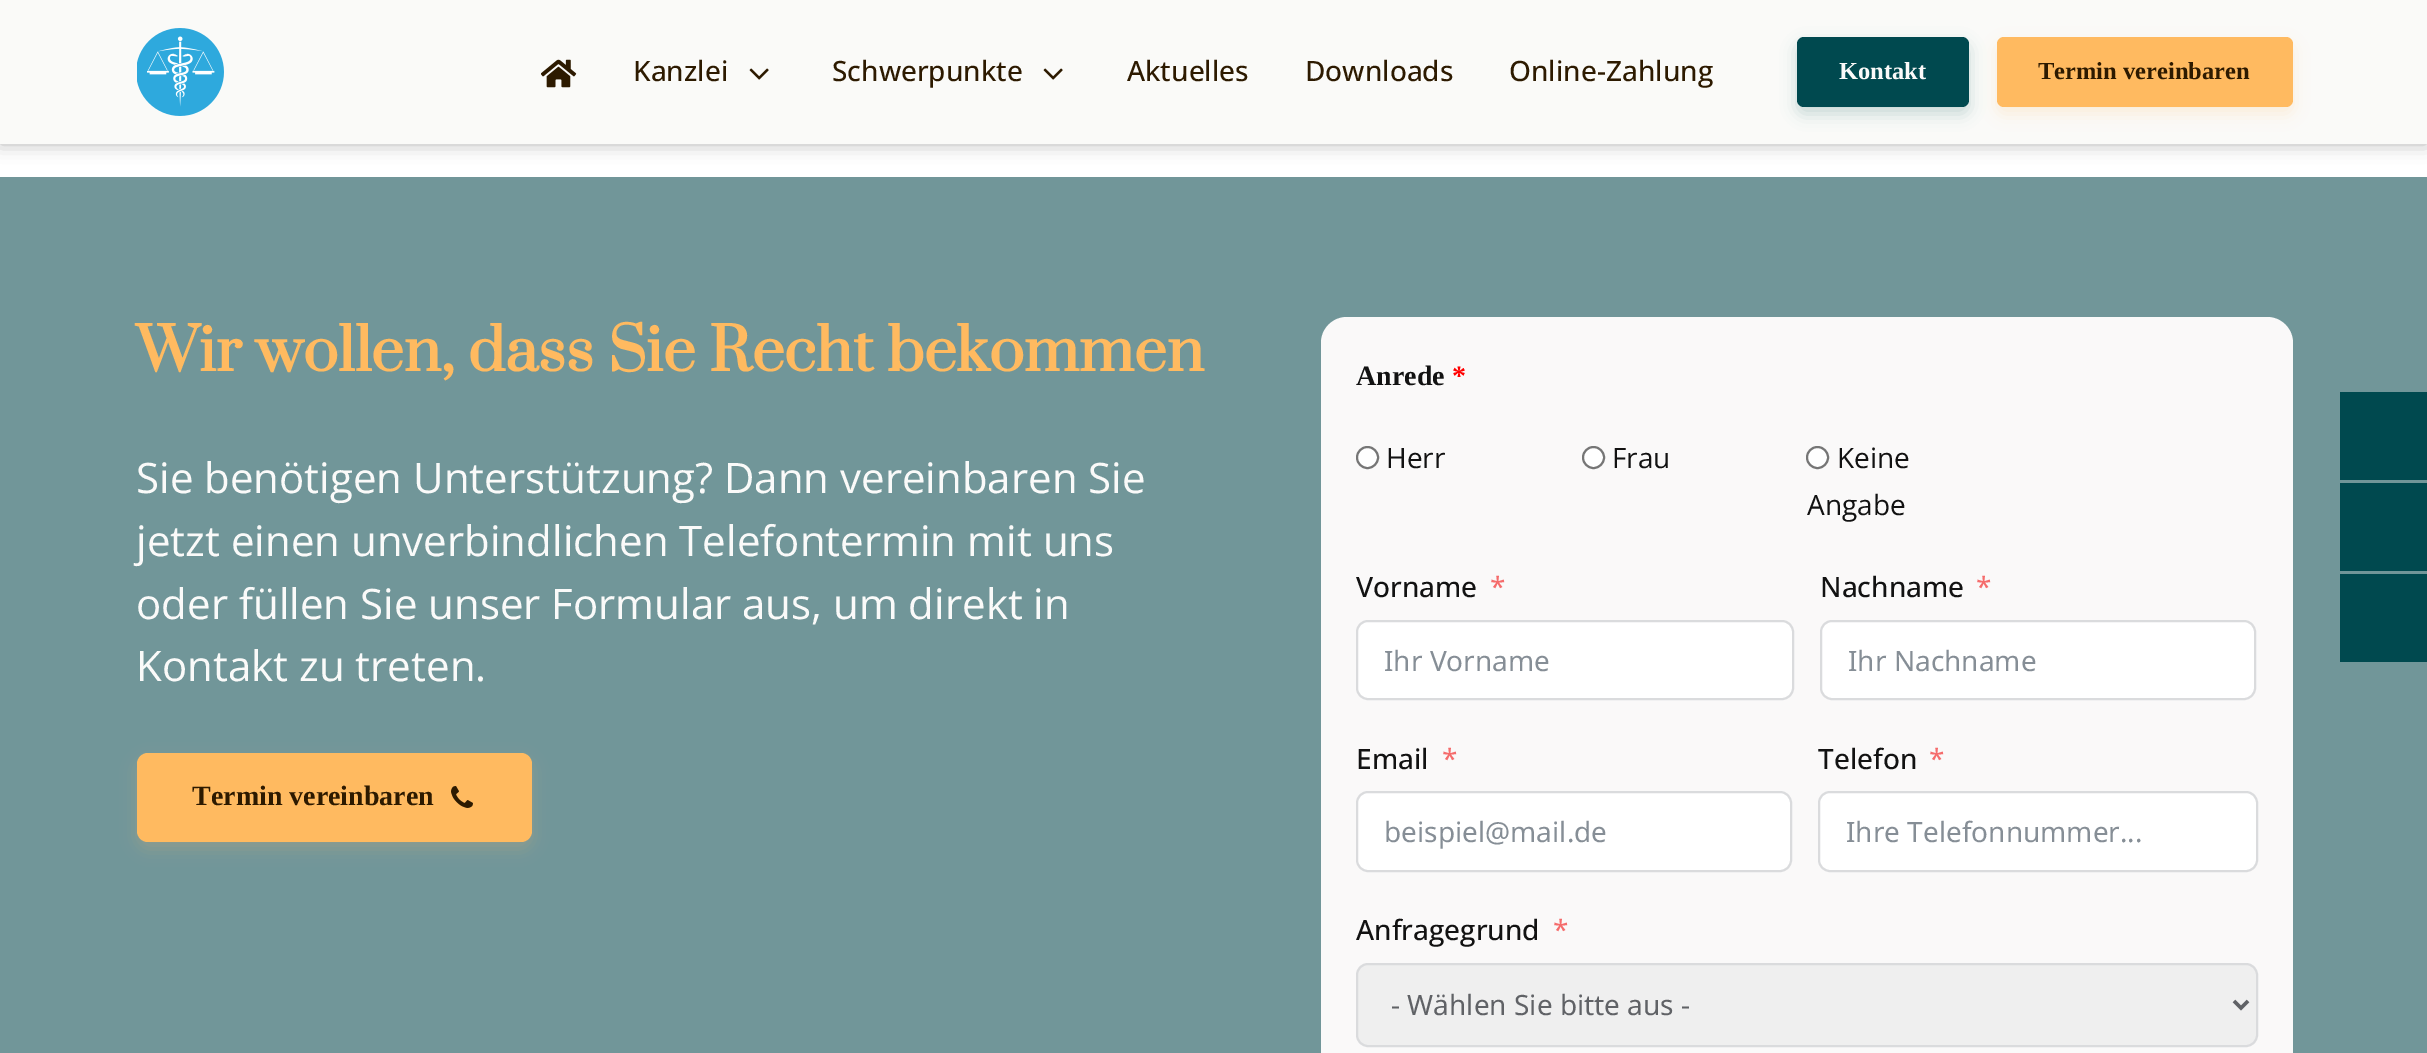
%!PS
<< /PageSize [2427 1053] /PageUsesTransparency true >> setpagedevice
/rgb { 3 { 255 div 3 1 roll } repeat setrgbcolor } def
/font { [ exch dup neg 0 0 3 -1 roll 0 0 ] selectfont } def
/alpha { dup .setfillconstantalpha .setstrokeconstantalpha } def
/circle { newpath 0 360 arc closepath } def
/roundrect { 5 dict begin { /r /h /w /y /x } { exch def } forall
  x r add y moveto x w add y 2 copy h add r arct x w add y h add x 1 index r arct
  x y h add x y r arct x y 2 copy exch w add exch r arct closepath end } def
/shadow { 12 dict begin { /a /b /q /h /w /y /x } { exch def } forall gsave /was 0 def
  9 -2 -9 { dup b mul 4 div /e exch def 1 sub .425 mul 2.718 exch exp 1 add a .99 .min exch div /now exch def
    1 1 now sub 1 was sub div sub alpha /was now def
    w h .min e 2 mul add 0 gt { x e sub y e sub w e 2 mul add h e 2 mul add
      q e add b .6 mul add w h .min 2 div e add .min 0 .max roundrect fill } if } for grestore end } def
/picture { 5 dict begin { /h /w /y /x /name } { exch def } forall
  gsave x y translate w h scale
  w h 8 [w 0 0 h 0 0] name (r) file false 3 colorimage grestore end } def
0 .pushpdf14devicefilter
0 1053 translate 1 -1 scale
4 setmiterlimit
255 255 255 rgb
0 0 2427 1053 rectfill
0 0 0 rgb
0 0 2427 144 0 9 0.3 shadow
250 250 248 rgb
0 0 2427 144 rectfill
(img/1.rgb) 137 28 87 88 picture
(img/2.rgb) 541 59 36 29 picture
(img/3.rgb) 749 68 20 12 picture
(img/3.rgb) 1043 68 20 12 picture
0 73 79 rgb
1797 44 172 70 7 8 0.2 shadow
1797 37 172 70 7 roundrect fill
255 186 96 rgb
1997 44 296 70 7 8 0.2 shadow
1997 37 296 70 7 roundrect fill
113 150 153 rgb
0 177 2427 876 rectfill
255 186 96 rgb
137 760 395 89 11 8 0.2 shadow
137 753 395 89 11 roundrect fill
(img/4.rgb) 451 786 22 22 picture
250 249 249 rgb
1321 317 972 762 26 roundrect fill
255 255 255 rgb
1367.5 457.5 10.5 circle gsave fill grestore
118 118 118 rgb
2 setlinewidth
stroke
255 255 255 rgb
1593.5 457.5 10.5 circle gsave fill grestore
118 118 118 rgb
stroke
255 255 255 rgb
1817.5 457.5 10.5 circle gsave fill grestore
118 118 118 rgb
stroke
255 255 255 rgb
1357 621 436 78 11 roundrect gsave fill grestore
218 219 221 rgb
stroke
255 255 255 rgb
1821 621 434 78 11 roundrect gsave fill grestore
218 219 221 rgb
stroke
255 255 255 rgb
1357 792 434 79 11 roundrect gsave fill grestore
218 219 221 rgb
stroke
255 255 255 rgb
1819 792 438 79 11 roundrect gsave fill grestore
218 219 221 rgb
stroke
239 239 239 rgb
1357 964 900 82 11 roundrect gsave fill grestore
218 219 221 rgb
stroke
96 98 102 rgb
3.5 setlinewidth
2234 1001 moveto 2241 1008 lineto 2248 1001 lineto stroke
[
  [2340 392 87 88 0 73 79]
  [2340 483 87 88 0 73 79]
  [2340 574 87 88 0 73 79]
] { aload pop rgb rectfill } forall
/OpenSans-Medium 28 font
45 26 0 rgb
[
  [(Kanzlei) 633 81]
  [(Schwerpunkte) 832 81]
  [(Aktuelles) 1127 81]
  [(Downloads) 1305 81]
  [(Online-Zahlung) 1509 81]
] { aload pop moveto show } forall
/LiberationSerif-Bold 24.5 font
250 250 249 rgb
1839 79 moveto (Kontakt) show
45 26 0 rgb
2038 79 moveto (Termin vereinbaren) show
/Prata-Bold 58.1 font
255 186 96 rgb
136 371 moveto (Wir wollen, dass Sie Recht bekommen) show
/OpenSans-Regular 42 font
250 250 249 rgb
[
  [(Sie benötigen Unterstützung? Dann vereinbaren Sie) 136 493]
  [(jetzt einen unverbindlichen Telefontermin mit uns) 136 556]
  [(oder füllen Sie unser Formular aus, um direkt in) 136 619]
  [(Kontakt zu treten.) 136 681]
] { aload pop moveto show } forall
/LiberationSerif-Bold 28 font
45 26 0 rgb
192 805 moveto (Termin vereinbaren) show
18 18 18 rgb
1356 385 moveto (Anrede) show
255 0 0 rgb
1452 385 moveto (*) show
/OpenSans-Regular 28 font
18 18 18 rgb
[
  [(Herr) 1386 468]
  [(Frau) 1612 468]
  [(Keine) 1837 468]
  [(Angabe) 1807 515]
] { aload pop moveto show } forall
/OpenSans-Medium 28 font
1356 597 moveto (Vorname) show
245 108 108 rgb
1490 597 moveto (*) show
/NotoSans-Regular 28 font
134 142 150 rgb
1384 671 moveto (Ihr Vorname) show
/OpenSans-Medium 28 font
18 18 18 rgb
1820 597 moveto (Nachname) show
245 108 108 rgb
1976 597 moveto (*) show
/NotoSans-Regular 28 font
134 142 150 rgb
1848 671 moveto (Ihr Nachname) show
/OpenSans-Medium 28 font
18 18 18 rgb
1356 769 moveto (Email) show
245 108 108 rgb
1442 769 moveto (*) show
/NotoSans-Regular 28 font
134 142 150 rgb
1384 842 moveto (beispiel@mail.de) show
/OpenSans-Medium 28 font
18 18 18 rgb
1818 769 moveto (Telefon) show
245 108 108 rgb
1929 769 moveto (*) show
/NotoSans-Regular 28 font
134 142 150 rgb
1846 842 moveto (Ihre Telefonnummer...) show
/OpenSans-Medium 28 font
18 18 18 rgb
1356 940 moveto (Anfragegrund) show
245 108 108 rgb
1553 940 moveto (*) show
/NotoSans-Regular 28 font
96 98 102 rgb
1391 1015 moveto (- Wählen Sie bitte aus -) show
.poppdf14devicefilter showpage
